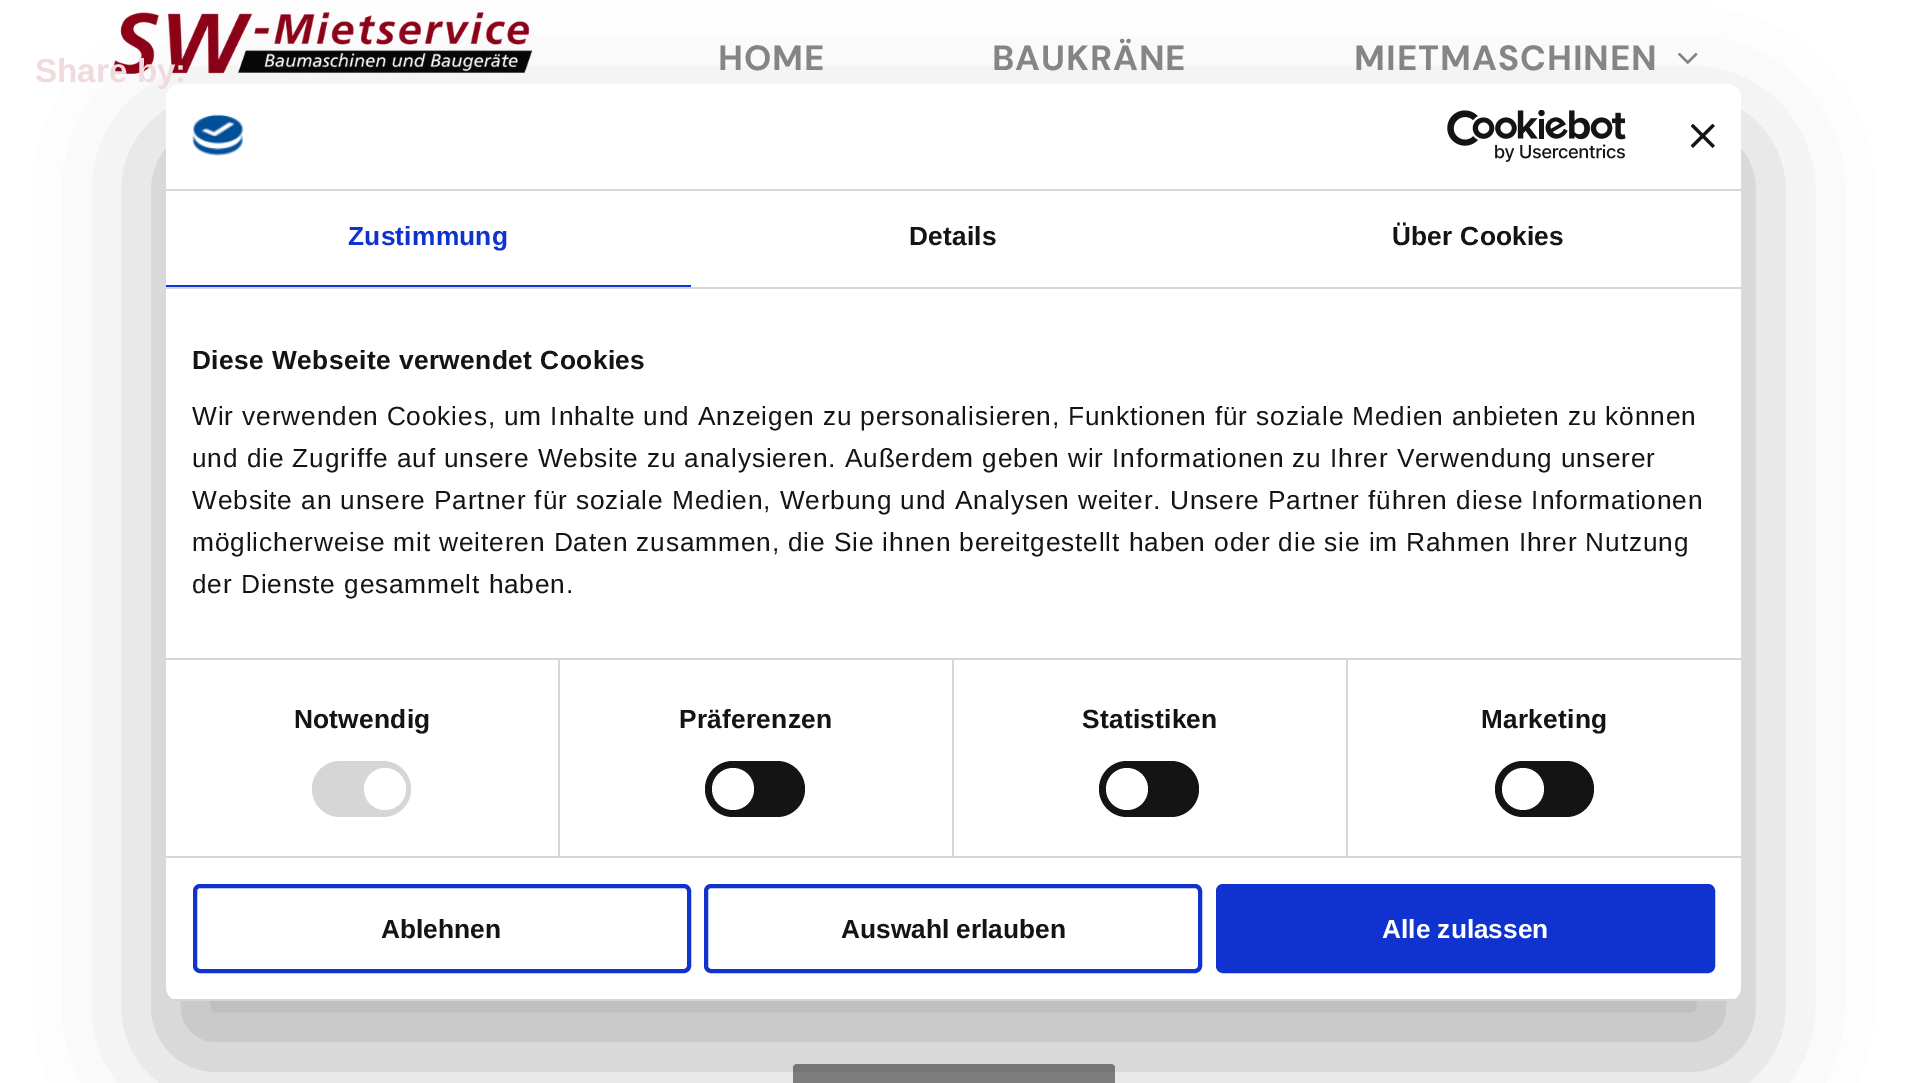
%!PS
<< /PageSize [1905 1083] /PageUsesTransparency true >> setpagedevice
/rgb { 3 { 255 div 3 1 roll } repeat setrgbcolor } def
/font { [ exch dup neg 0 0 3 -1 roll 0 0 ] selectfont } def
/alpha { dup .setfillconstantalpha .setstrokeconstantalpha } def
/circle { newpath 0 360 arc closepath } def
/roundrect { 5 dict begin { /r /h /w /y /x } { exch def } forall
  x r add y moveto x w add y 2 copy h add r arct x w add y h add x 1 index r arct
  x y h add x y r arct x y 2 copy exch w add exch r arct closepath end } def
/shadow { 12 dict begin { /a /b /q /h /w /y /x } { exch def } forall gsave /was 0 def
  9 -2 -9 { dup b mul 4 div /e exch def 1 sub .425 mul 2.718 exch exp 1 add a .99 .min exch div /now exch def
    1 1 now sub 1 was sub div sub alpha /was now def
    w h .min e 2 mul add 0 gt { x e sub y e sub w e 2 mul add h e 2 mul add
      q e add b .6 mul add w h .min 2 div e add .min 0 .max roundrect fill } if } for grestore end } def
/picture { 5 dict begin { /h /w /y /x /name } { exch def } forall
  gsave x y translate w h scale
  w h 8 [w 0 0 h 0 0] name (r) file false 3 colorimage grestore end } def
0 .pushpdf14devicefilter
0 1083 translate 1 -1 scale
4 setmiterlimit
255 255 255 rgb
0 0 1905 1083 rectfill
(img/1.rgb) 112 12 420 62 picture
(img/2.rgb) 1678 52 20 12 picture
137 137 137 rgb
793 1064 322 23 4 roundrect fill
0 0 0 rgb
166 140 1575 917 14 59.5 0.3 shadow
/LiberationSans-Bold 33.25 font
239 219 222 rgb
35 82 moveto (Share by:) show
/DMSans-Bold 35 font
133 133 133 rgb
718 70 moveto 1 0 (HOME) ashow
992 70 moveto 1 0 (BAUKRÄNE) ashow
1354 70 moveto 1 0 (MIETMASCHINEN) ashow
255 255 255 rgb
166 84 1575 917 14 roundrect fill
214 214 214 rgb
166 189 1575 2 rectfill
(img/3.rgb) 192 114 52 42 picture
(img/4.rgb) 1447 110 179 52 picture
(img/5.rgb) 1691 124 24 24 picture
166 287 1575 2 rectfill
16 50 207 rgb
166 285 525 2 rectfill
/LiberationSans-Bold 26.25 font
348 245 moveto 0.25 0 (Zustimmung) ashow
20 20 20 rgb
909 245 moveto 0.25 0 (Details) ashow
1392 245 moveto 0.25 0 (Über Cookies) ashow
214 214 214 rgb
166 658 1575 2 rectfill
20 20 20 rgb
192 369 moveto 0.45 0 (Diese Webseite verwendet Cookies) ashow
/LiberationSans-Regular 26.25 font
192 425 moveto 0.88 0 (Wir verwenden Cookies, um Inhalte und Anzeigen zu personalisieren, Funktionen für soziale Medien anbieten zu können) ashow
192 467 moveto 0.88 0 (und die Zugriffe auf unsere Website zu analysieren. Außerdem geben wir Informationen zu Ihrer Verwendung unserer) ashow
192 509 moveto 0.88 0 (Website an unsere Partner für soziale Medien, Werbung und Analysen weiter. Unsere Partner führen diese Informationen) ashow
192 551 moveto 0.88 0 (möglicherweise mit weiteren Daten zusammen, die Sie ihnen bereitgestellt haben oder die sie im Rahmen Ihrer Nutzung) ashow
192 593 moveto 0.88 0 (der Dienste gesammelt haben.) ashow
214 214 214 rgb
166 856 1575 2 rectfill
558 660 2 196 rectfill
/LiberationSans-Bold 26.25 font
20 20 20 rgb
294 728 moveto 0.25 0 (Notwendig) ashow
214 214 214 rgb
312 761 99 56 28 roundrect fill
255 255 255 rgb
385 789 21 circle fill
214 214 214 rgb
952 660 2 196 rectfill
20 20 20 rgb
679 728 moveto 0.25 0 (Präferenzen) ashow
705 761 100 56 28 roundrect fill
255 255 255 rgb
733 789 21 circle fill
214 214 214 rgb
1346 660 2 196 rectfill
20 20 20 rgb
1082 728 moveto 0.25 0 (Statistiken) ashow
1099 761 100 56 28 roundrect fill
255 255 255 rgb
1127 789 21 circle fill
20 20 20 rgb
1481 728 moveto 0.25 0 (Marketing) ashow
1495 761 99 56 28 roundrect fill
255 255 255 rgb
1523 789 21 circle fill
gsave
166 84 1575 917 14 roundrect clip newpath
214 214 214 rgb
166 999 1575 2 rectfill
grestore
16 50 207 rgb
4 setlinewidth
195 886 494 85 5 roundrect stroke
20 20 20 rgb
381 938 moveto (Ablehnen) show
16 50 207 rgb
706 886 494 85 5 roundrect stroke
20 20 20 rgb
841 938 moveto (Auswahl erlauben) show
16 50 207 rgb
1218 886 495 85 5 roundrect gsave fill grestore
stroke
255 255 255 rgb
1382 938 moveto (Alle zulassen) show
.poppdf14devicefilter showpage
